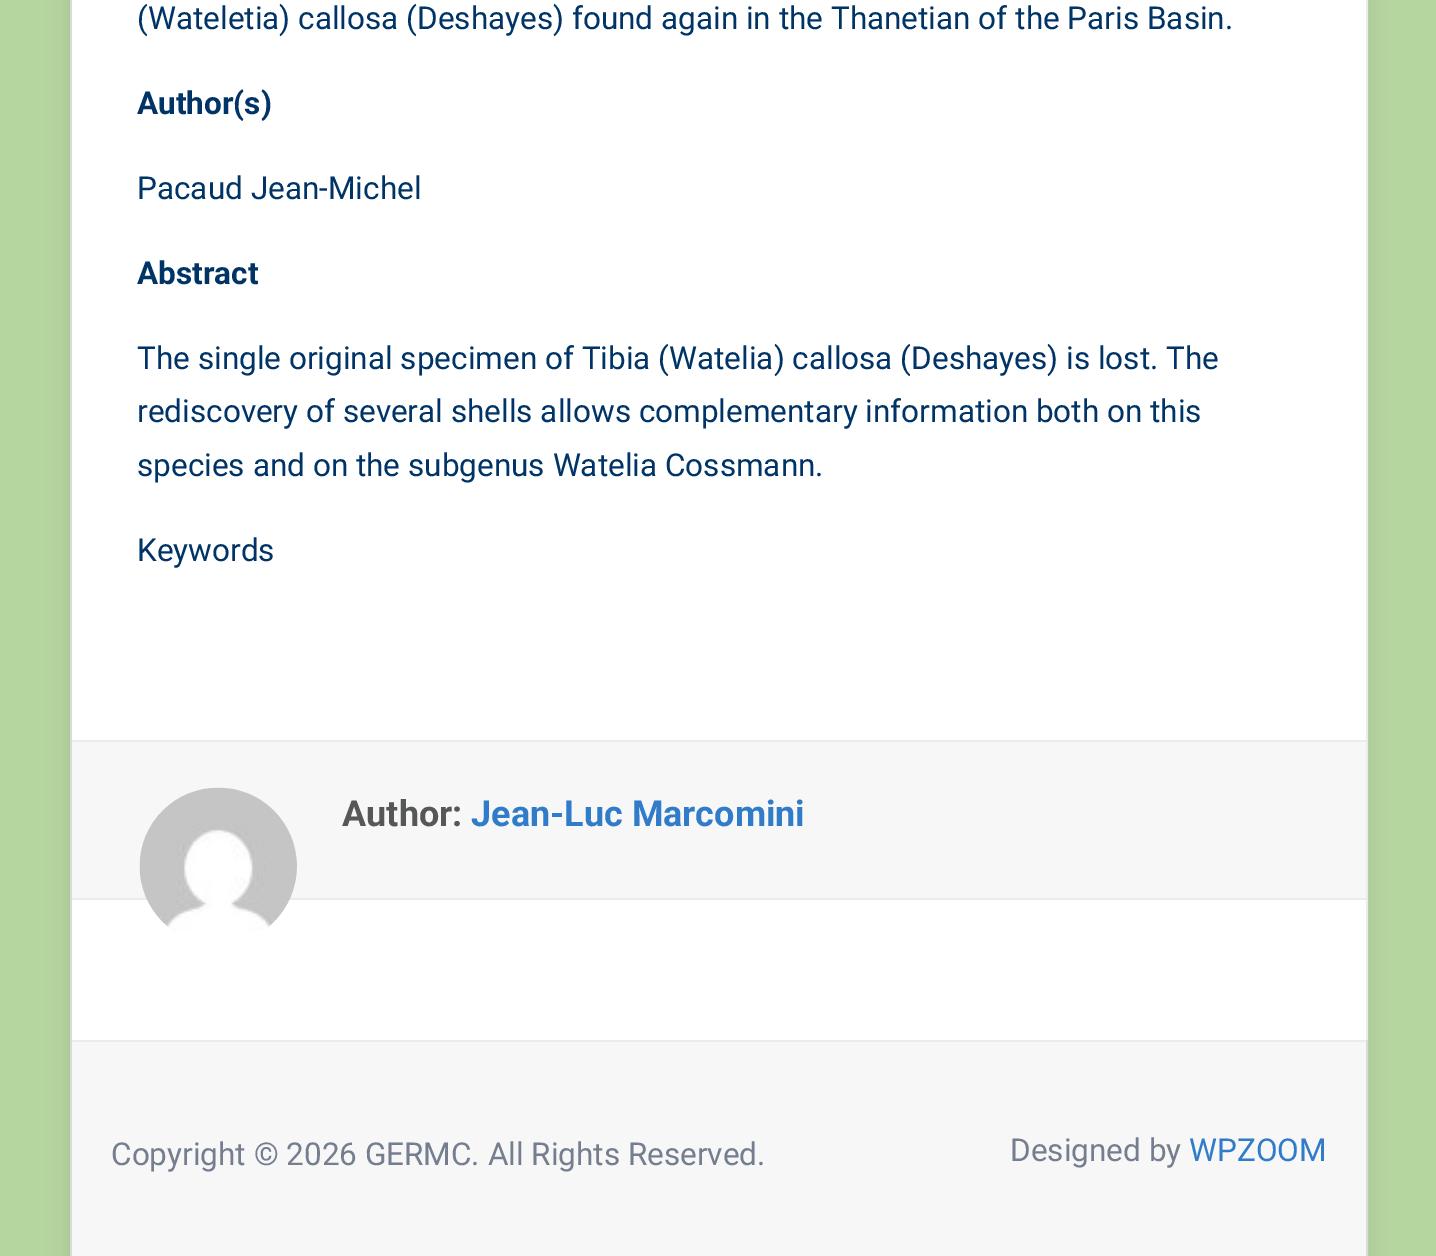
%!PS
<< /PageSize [1436 1256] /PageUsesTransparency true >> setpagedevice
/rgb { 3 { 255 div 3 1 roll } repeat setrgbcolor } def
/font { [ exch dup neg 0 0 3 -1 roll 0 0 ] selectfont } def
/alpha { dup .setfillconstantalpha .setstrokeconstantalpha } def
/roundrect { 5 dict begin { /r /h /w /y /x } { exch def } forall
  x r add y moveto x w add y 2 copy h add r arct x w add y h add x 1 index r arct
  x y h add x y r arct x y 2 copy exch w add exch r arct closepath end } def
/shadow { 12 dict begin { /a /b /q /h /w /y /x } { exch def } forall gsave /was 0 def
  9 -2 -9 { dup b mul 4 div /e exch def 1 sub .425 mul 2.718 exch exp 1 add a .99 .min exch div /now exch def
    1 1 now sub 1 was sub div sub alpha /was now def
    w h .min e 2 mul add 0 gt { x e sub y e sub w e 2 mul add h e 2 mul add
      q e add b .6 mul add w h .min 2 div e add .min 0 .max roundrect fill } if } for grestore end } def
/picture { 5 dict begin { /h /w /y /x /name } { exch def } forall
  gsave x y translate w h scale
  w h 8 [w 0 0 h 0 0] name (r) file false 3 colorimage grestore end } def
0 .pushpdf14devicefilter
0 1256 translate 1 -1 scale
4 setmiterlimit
182 214 160 rgb
0 0 1436 1256 rectfill
0 0 0 rgb
70 -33 1298 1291 0 11 0.1 shadow
218 218 218 rgb
2 setlinewidth
71 -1 1296 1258 rectstroke
[
  [72 0 1294 1040 255 255 255]
  [1366 0 2 1040 235 235 235]
  [72 742 1294 156 247 247 247]
  [72 740 1294 2 235 235 235]
  [72 898 1294 2 235 235 235]
] { aload pop rgb rectfill } forall
(img/1.rgb) 139 787 158 144 picture
247 247 247 rgb
72 1042 1294 214 rectfill
235 235 235 rgb
72 1040 1294 2 rectfill
/Roboto-Regular 31.5 font
0 51 102 rgb
137 29 moveto (\(Wateletia\) callosa \(Deshayes\) found again in the Thanetian of the Paris Basin.) show
/Roboto-Bold 31.5 font
137 114 moveto (Author\(s\)) show
/Roboto-Regular 31.5 font
137 199 moveto (Pacaud Jean-Michel) show
/Roboto-Bold 31.5 font
137 284 moveto (Abstract) show
/Roboto-Regular 31.5 font
[
  [(The single original specimen of Tibia \(Watelia\) callosa \(Deshayes\) is lost. The) 137 369]
  [(rediscovery of several shells allows complementary information both on this) 137 422]
  [(species and on the subgenus Watelia Cossmann.) 137 476]
  [(Keywords) 137 561]
] { aload pop moveto show } forall
/Roboto-Bold 36 font
85 87 88 rgb
342 826 moveto (Author:) show
49 124 200 rgb
471 826 moveto (Jean-Luc Marcomini) show
/Roboto-Regular 31.5 font
116 126 142 rgb
111 1165 moveto (Copyright © 2026 GERMC. All Rights Reserved.) show
1010 1161 moveto (Designed by) show
49 124 200 rgb
1189 1161 moveto (WPZOOM) show
.poppdf14devicefilter showpage
